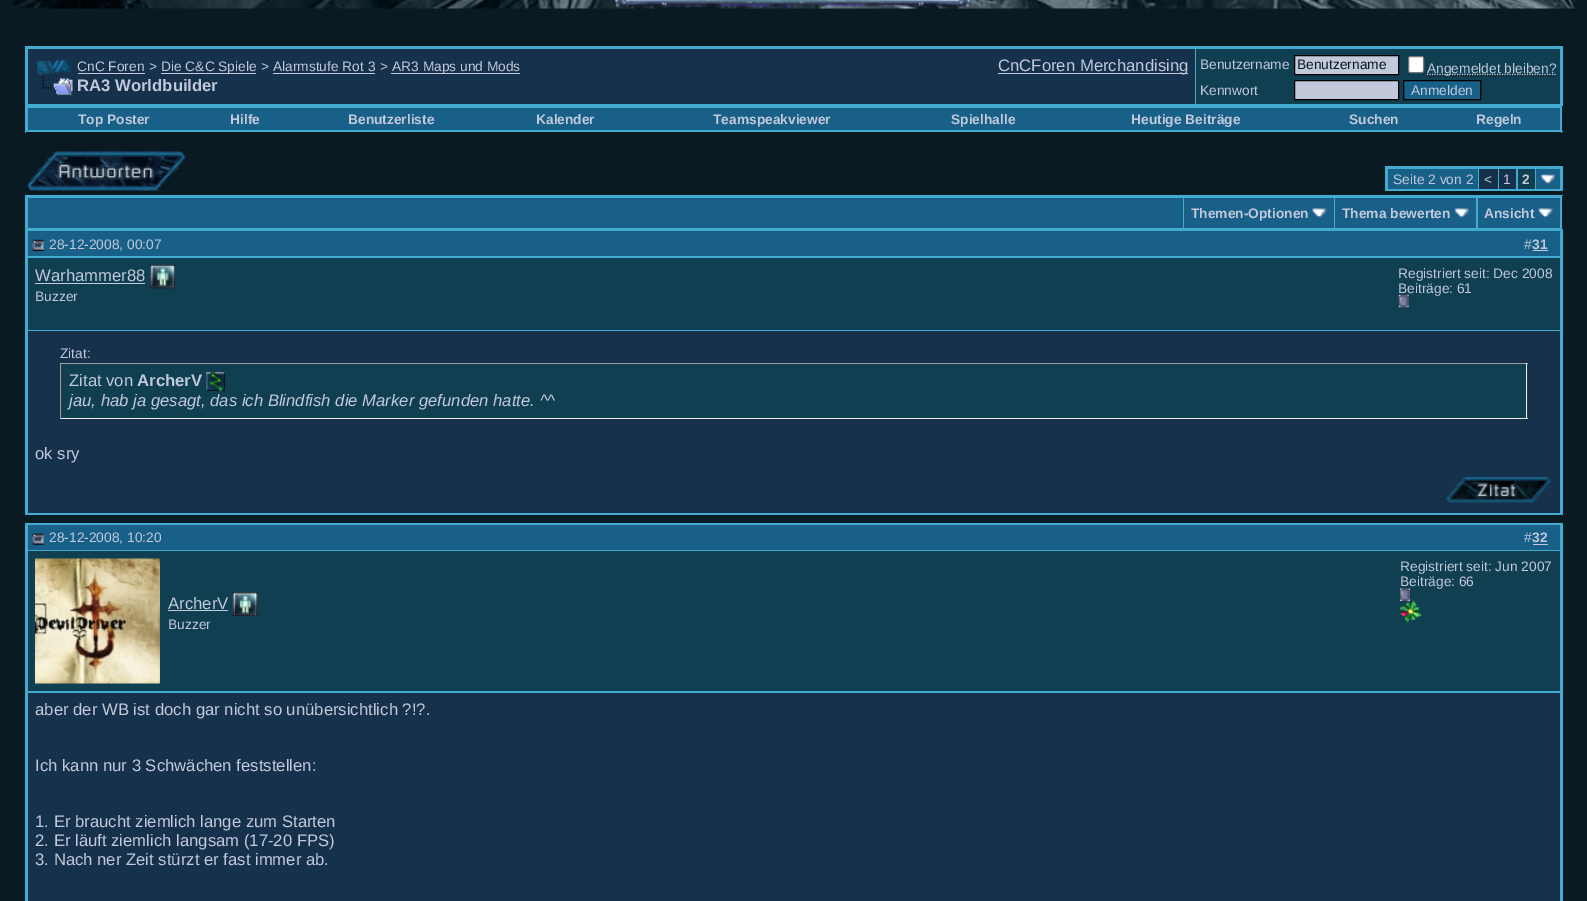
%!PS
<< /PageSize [1587 901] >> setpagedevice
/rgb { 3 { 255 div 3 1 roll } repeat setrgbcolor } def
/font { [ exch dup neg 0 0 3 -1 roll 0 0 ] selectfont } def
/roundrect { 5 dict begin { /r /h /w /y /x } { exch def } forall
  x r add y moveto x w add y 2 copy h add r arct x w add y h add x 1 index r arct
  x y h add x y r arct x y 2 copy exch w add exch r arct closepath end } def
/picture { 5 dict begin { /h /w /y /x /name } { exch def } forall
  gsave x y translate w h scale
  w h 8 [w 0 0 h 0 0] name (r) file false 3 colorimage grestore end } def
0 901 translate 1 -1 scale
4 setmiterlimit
9 26 34 rgb
0 0 1587 901 rectfill
(img/1.rgb) 12 0 1563 9 picture
(img/2.rgb) 614 0 358 8 picture
65 172 208 rgb
25 46 1538 60 rectfill
22 49 76 rgb
28 49 1167 55 rectfill
(img/3.rgb) 36 59 36 16 picture
[
  [78 73 67 1 193 201 219]
  [161 73 95 1 193 201 219]
  [273 73 102 1 193 201 219]
  [391 73 129 1 193 201 219]
] { aload pop rgb rectfill } forall
(img/4.rgb) 42 77 31 18 picture
998 73 190 1 rectfill
16 63 81 rgb
1196 49 364 55 rectfill
193 201 219 rgb
1294.5 55.5 moveto 1398.5 55.5 lineto 1398.5 74.5 lineto 1294.5 74.5 lineto closepath gsave fill grestore
0 0 0 rgb
stroke
255 255 255 rgb
1408.5 56.5 15 16 2 roundrect gsave fill grestore
118 118 118 rgb
stroke
0 0 0 rgb
1.2 setlinewidth
[1.25 1.25] 0 setdash
1427.5 75.5 moveto 1556 75.5 lineto stroke
193 201 219 rgb
1427 74.5 moveto 1556 74.5 lineto stroke
1294.5 80.5 moveto 1398.5 80.5 lineto 1398.5 99.5 lineto 1294.5 99.5 lineto closepath gsave fill grestore
0 0 0 rgb
1 setlinewidth
[] 0 setdash
stroke
24 96 136 rgb
1403.5 80.5 moveto 1480.5 80.5 lineto 1480.5 99.5 lineto 1403.5 99.5 lineto closepath gsave fill grestore
0 0 0 rgb
stroke
[
  [26 106 1535 25 65 172 208]
  [1561 106 1 27 65 172 208]
  [25 131 1538 1 65 172 208]
  [25 106 1 27 65 172 208]
  [28 108 1532 22 24 96 136]
] { aload pop rgb rectfill } forall
(img/5.rgb) 25 151 162 40 picture
[
  [1385 166 178 25 65 172 208]
  [1388 169 90 20 24 96 136]
  [1479 169 19 20 22 49 76]
  [1499 169 17 20 22 49 76]
  [1518 169 17 20 16 63 81]
  [1536 169 24 20 24 96 136]
] { aload pop rgb rectfill } forall
(img/6.rgb) 1541 174 14 10 picture
[
  [26 196 1535 33 65 172 208]
  [25 195 1538 1 65 172 208]
  [1561 195 1 34 65 172 208]
  [25 195 1 34 65 172 208]
  [28 198 1155 30 24 96 136]
  [1184 198 150 30 24 96 136]
] { aload pop rgb rectfill } forall
(img/7.rgb) 1312 208 15 10 picture
1335 198 141 30 rectfill
(img/8.rgb) 1455 208 14 10 picture
1478 198 82 30 rectfill
(img/9.rgb) 1538 208 15 10 picture
65 172 208 rgb
25 229 1538 286 rectfill
24 96 136 rgb
28 231 1532 25 rectfill
(img/10.rgb) 32 239 12 12 picture
[
  [1533 250 15 1 193 201 219]
  [28 258 1532 72 16 63 81]
  [35 283 110 1 193 201 219]
] { aload pop rgb rectfill } forall
(img/11.rgb) 150 264 25 25 picture
[
  [28 331 1532 182 22 49 76]
  [61 364 1467 54 16 63 81]
  [60 363 1468 1 159 159 159]
  [1526 363 1 56 238 238 238]
  [60 418 1468 1 238 238 238]
  [60 363 1 56 159 159 159]
] { aload pop rgb rectfill } forall
(img/13.rgb) 206 372 19 19 picture
(img/14.rgb) 1446 476 105 27 picture
65 172 208 rgb
25 523 1538 378 rectfill
24 96 136 rgb
28 525 1532 25 rectfill
(img/15.rgb) 32 533 12 12 picture
193 201 219 rgb
1533 544 15 1 rectfill
16 63 81 rgb
28 551 1532 140 rectfill
(img/16.rgb) 35 558 125 126 picture
(img/18.rgb) 1400 601 22 22 picture
193 201 219 rgb
168 610 60 1 rectfill
(img/19.rgb) 232 592 26 24 picture
22 49 76 rgb
28 693 1532 208 rectfill
/LiberationSans-Regular 13.75 font
193 201 219 rgb
[
  [(CnC Foren) 77 71]
  [(>) 149 71]
  [(Die C&C Spiele) 161 71]
  [(> Alarmstufe Rot 3) 261 71]
  [(>) 380 71]
  [(AR3 Maps und Mods) 392 71]
] { aload pop moveto show } forall
/LiberationSans-Bold 16.7 font
77 91 moveto (RA3 Worldbuilder) show
/LiberationSans-Regular 16.7 font
998 71 moveto (CnCForen Merchandising) show
/LiberationSans-Regular 13.75 font
1200 69 moveto (Benutzername) show
9 26 34 rgb
1297 69 moveto (Benutzername) show
193 201 219 rgb
[
  [(Angemeldet bleiben?) 1427 73]
  [(Kennwort) 1200 95]
  [(Anmelden) 1411 95]
] { aload pop moveto show } forall
/LiberationSans-Bold 13.75 font
[
  [(Top Poster) 78 124]
  [(Hilfe) 230 124]
  [(Benutzerliste) 348 124]
  [(Kalender) 536 124]
  [(Teamspeakviewer) 713 124]
  [(Spielhalle) 951 124]
  [(Heutige Beiträge) 1131 124]
  [(Suchen) 1349 124]
  [(Regeln) 1476 124]
] { aload pop moveto show } forall
/LiberationSans-Regular 13.75 font
[
  [(Seite 2 von 2) 1393 184]
  [(<) 1484 184]
  [(1) 1503 184]
] { aload pop moveto show } forall
/LiberationSans-Bold 13.75 font
[
  [(2) 1522 184]
  [(Themen-Optionen) 1191 218]
  [(Thema bewerten) 1342 218]
  [(Ansicht) 1484 218]
] { aload pop moveto show } forall
/LiberationSans-Regular 13.75 font
49 249 moveto (28-12-2008, 00:07) show
1524 249 moveto (#) show
/LiberationSans-Bold 13.75 font
1532 249 moveto (31) show
/LiberationSans-Regular 16.7 font
35 281 moveto (Warhammer88) show
/LiberationSans-Regular 13.75 font
[
  [(Buzzer) 35 301]
  [(Registriert seit: Dec 2008) 1398 278]
  [(Beiträge: 61) 1398 293]
] { aload pop moveto show } forall
(img/12.rgb) 1398 294 11 14 picture
60 358 moveto (Zitat:) show
/LiberationSans-Regular 16.7 font
69 386 moveto (Zitat von) show
/LiberationSans-Bold 16.7 font
137 386 moveto (ArcherV) show
/LiberationSans-Italic 16.7 font
69 406 moveto (jau, hab ja gesagt, das ich Blindfish die Marker gefunden hatte. ^^) show
/LiberationSans-Regular 16.7 font
35 459 moveto (ok sry) show
/LiberationSans-Regular 13.75 font
49 542 moveto (28-12-2008, 10:20) show
1524 542 moveto (#) show
/LiberationSans-Bold 13.75 font
1532 542 moveto (32) show
/LiberationSans-Regular 13.75 font
1400 571 moveto (Registriert seit: Jun 2007) show
1400 586 moveto (Beiträge: 66) show
(img/17.rgb) 1400 588 10 13 picture
/LiberationSans-Regular 16.7 font
168 609 moveto (ArcherV) show
/LiberationSans-Regular 13.75 font
168 629 moveto (Buzzer) show
/LiberationSans-Regular 16.7 font
[
  [(aber der WB ist doch gar nicht so unübersichtlich ?!?.) 35 715]
  [(Ich kann nur 3 Schwächen feststellen:) 35 771]
  [(1. Er braucht ziemlich lange zum Starten) 35 827]
  [(2. Er läuft ziemlich langsam \(17-20 FPS\)) 35 846]
  [(3. Nach ner Zeit stürzt er fast immer ab.) 35 865]
] { aload pop moveto show } forall
showpage
